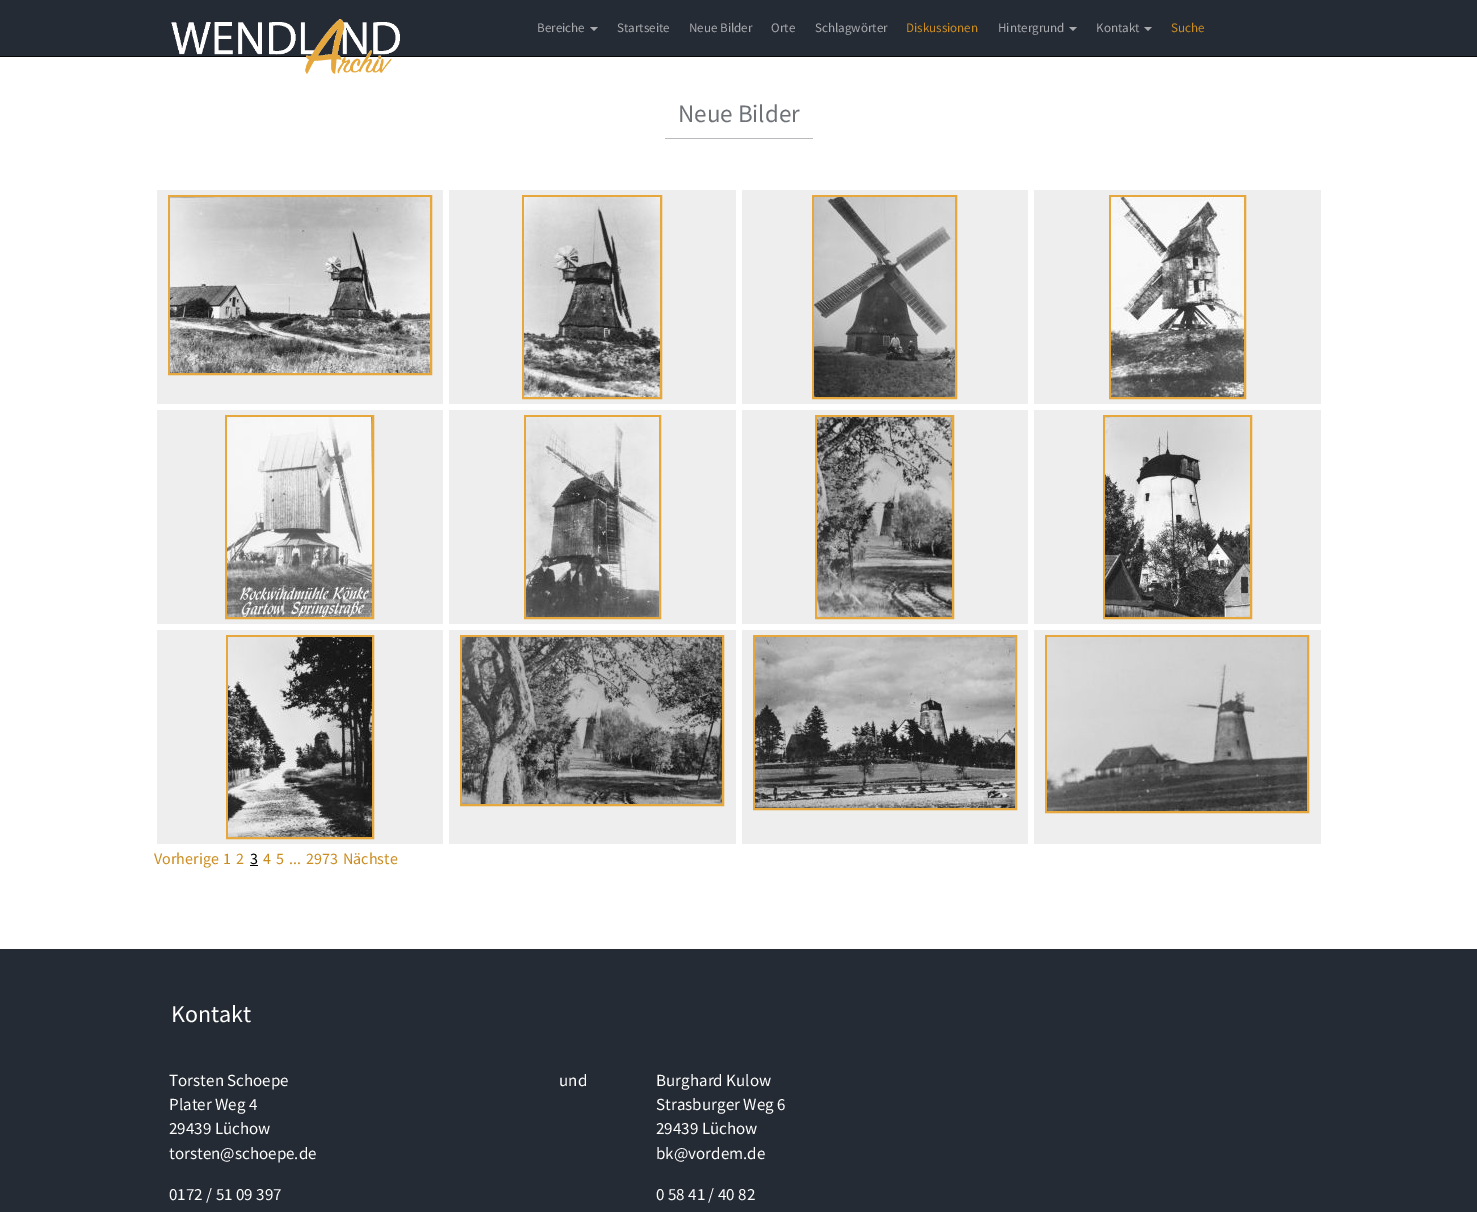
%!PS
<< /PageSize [1477 1212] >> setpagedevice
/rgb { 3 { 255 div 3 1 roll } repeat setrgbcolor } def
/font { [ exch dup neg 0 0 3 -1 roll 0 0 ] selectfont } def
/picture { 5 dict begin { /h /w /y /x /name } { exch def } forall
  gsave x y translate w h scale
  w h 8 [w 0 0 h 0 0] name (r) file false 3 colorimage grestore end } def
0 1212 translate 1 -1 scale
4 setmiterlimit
255 255 255 rgb
0 0 1477 1212 rectfill
37 43 52 rgb
0 0 1477 56 rectfill
8 8 8 rgb
0 56 1477 1 rectfill
(img/1.rgb) 171 19 229 55 picture
168 170 174 rgb
590 27 moveto 598 27 lineto 594 31 lineto closepath fill
1069 27 moveto 1077 27 lineto 1073 31 lineto closepath fill
1144 27 moveto 1152 27 lineto 1148 31 lineto closepath fill
184 186 190 rgb
665 138 148 1 rectfill
238 238 238 rgb
157 190 286 214 rectfill
230 168 60 rgb
2 setlinewidth
169 196 262 178 rectstroke
(img/2.rgb) 170 197 260 176 picture
238 238 238 rgb
449 190 287 214 rectfill
230 168 60 rgb
523 196 138 202 rectstroke
(img/3.rgb) 524 197 136 200 picture
238 238 238 rgb
742 190 286 214 rectfill
230 168 60 rgb
813 196 143 202 rectstroke
(img/4.rgb) 814 197 141 200 picture
238 238 238 rgb
1034 190 287 214 rectfill
230 168 60 rgb
1110 196 135 202 rectstroke
(img/5.rgb) 1111 197 133 200 picture
238 238 238 rgb
157 410 286 214 rectfill
230 168 60 rgb
226 416 147 202 rectstroke
(img/6.rgb) 227 417 145 200 picture
238 238 238 rgb
449 410 287 214 rectfill
230 168 60 rgb
525 416 135 202 rectstroke
(img/7.rgb) 526 417 133 200 picture
238 238 238 rgb
742 410 286 214 rectfill
230 168 60 rgb
816 416 137 202 rectstroke
(img/8.rgb) 817 417 135 200 picture
238 238 238 rgb
1034 410 287 214 rectfill
230 168 60 rgb
1104 416 147 202 rectstroke
(img/9.rgb) 1105 417 145 200 picture
238 238 238 rgb
157 630 286 214 rectfill
230 168 60 rgb
227 636 146 202 rectstroke
(img/10.rgb) 228 637 144 200 picture
238 238 238 rgb
449 630 287 214 rectfill
230 168 60 rgb
461 636 262 169 rectstroke
(img/11.rgb) 462 637 260 167 picture
238 238 238 rgb
742 630 286 214 rectfill
230 168 60 rgb
754 636 262 173 rectstroke
(img/12.rgb) 755 637 260 171 picture
238 238 238 rgb
1034 630 287 214 rectfill
230 168 60 rgb
1046 636 262 176 rectstroke
(img/13.rgb) 1047 637 260 174 picture
0 0 0 rgb
250 865 8 1 rectfill
37 43 52 rgb
0 949 1477 263 rectfill
/SourceSansPro-Regular 13 font
168 170 174 rgb
[
  [(Bereiche) 537 32]
  [(Startseite) 617 32]
  [(Neue Bilder) 689 32]
  [(Orte) 771 32]
  [(Schlagwörter) 815 32]
] { aload pop moveto show } forall
203 141 33 rgb
906 32 moveto (Diskussionen) show
168 170 174 rgb
998 32 moveto (Hintergrund) show
1096 32 moveto (Kontakt) show
203 141 33 rgb
1171 32 moveto (Suche) show
/SourceSansPro-Regular 25 font
110 114 119 rgb
678 122 moveto (Neue Bilder) show
/SourceSansPro-Regular 16 font
203 141 33 rgb
[
  [(Vorherige) 154 864]
  [(1) 223 864]
  [(2) 236 864]
] { aload pop moveto show } forall
0 0 0 rgb
250 864 moveto (3) show
203 141 33 rgb
[
  [(4) 263 864]
  [(5) 276 864]
  [(...) 289 864]
  [(2973) 306 864]
  [(Nächste) 343 864]
] { aload pop moveto show } forall
/SourceSansPro-Regular 24 font
255 255 255 rgb
171 1022 moveto (Kontakt) show
/SourceSansPro-Regular 17 font
[
  [(Torsten Schoepe) 169 1086]
  [(Plater Weg 4) 169 1110]
  [(29439 Lüchow) 169 1134]
  [(torsten@schoepe.de) 169 1159]
  [(0172 / 51 09 397) 169 1200]
  [(und) 559 1086]
  [(Burghard Kulow) 656 1086]
  [(Strasburger Weg 6) 656 1110]
  [(29439 Lüchow) 656 1134]
  [(bk@vordem.de) 656 1159]
  [(0 58 41 / 40 82) 656 1200]
] { aload pop moveto show } forall
showpage
